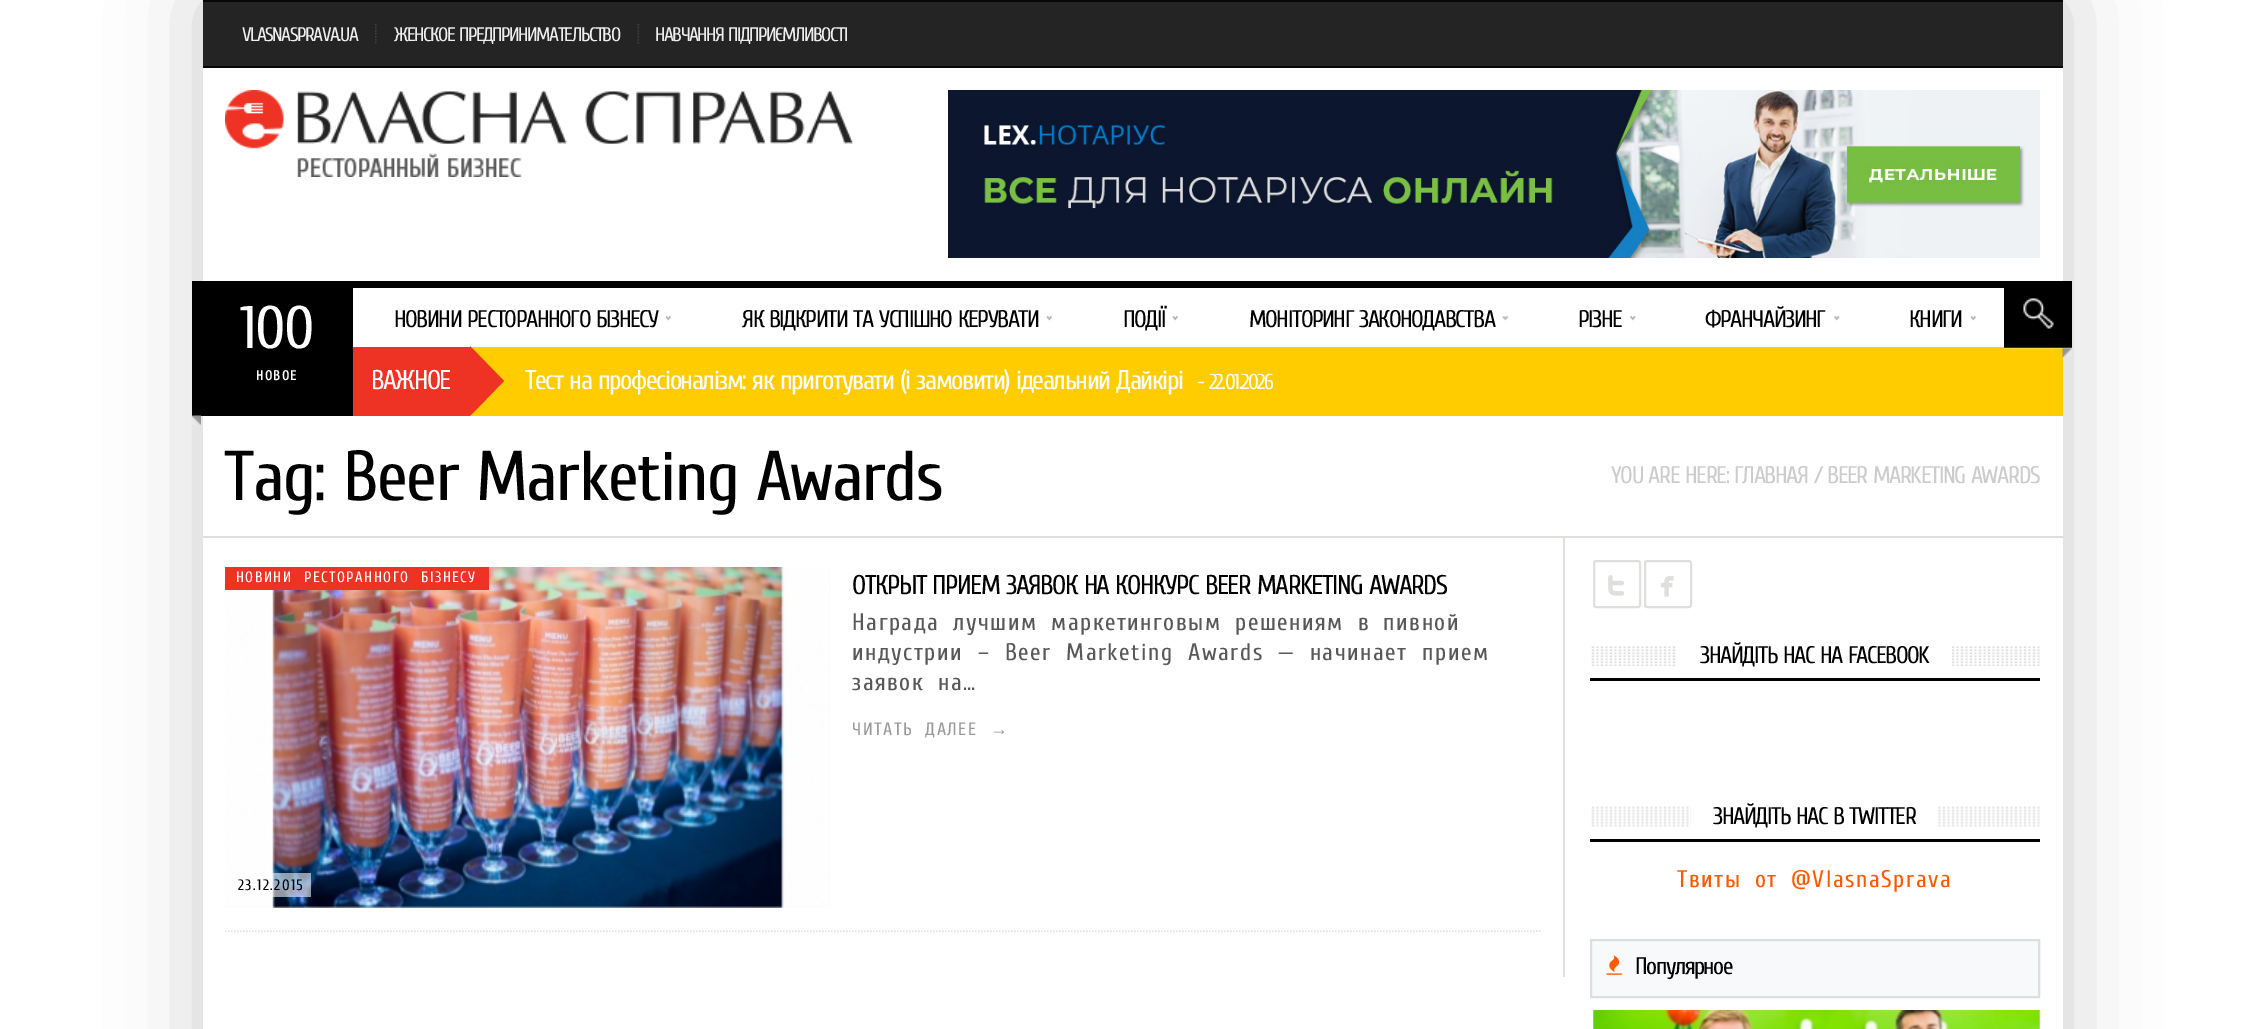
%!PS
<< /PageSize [2263 1029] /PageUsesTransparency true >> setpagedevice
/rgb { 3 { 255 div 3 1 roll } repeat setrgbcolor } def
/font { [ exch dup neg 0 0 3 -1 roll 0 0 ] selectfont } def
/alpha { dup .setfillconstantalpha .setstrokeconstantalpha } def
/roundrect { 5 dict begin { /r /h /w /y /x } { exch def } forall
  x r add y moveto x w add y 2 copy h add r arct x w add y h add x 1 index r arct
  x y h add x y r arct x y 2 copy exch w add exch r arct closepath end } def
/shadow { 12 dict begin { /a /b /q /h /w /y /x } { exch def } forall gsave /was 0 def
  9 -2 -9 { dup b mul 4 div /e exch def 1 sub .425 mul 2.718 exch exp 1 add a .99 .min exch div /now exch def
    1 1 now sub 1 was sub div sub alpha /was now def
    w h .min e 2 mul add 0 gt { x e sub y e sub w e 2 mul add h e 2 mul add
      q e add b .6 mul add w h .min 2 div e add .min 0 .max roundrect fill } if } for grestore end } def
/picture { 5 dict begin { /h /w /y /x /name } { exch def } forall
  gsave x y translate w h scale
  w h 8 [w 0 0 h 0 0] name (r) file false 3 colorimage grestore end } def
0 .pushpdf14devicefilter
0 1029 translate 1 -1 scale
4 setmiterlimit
255 255 255 rgb
0 0 2263 1029 rectfill
0 0 0 rgb
203 0 1860 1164 0 45 0.2 shadow
[
  [203 68 1860 961 255 255 255]
  [203 2 1860 64 36 36 36]
  [203 0 1860 2 7 7 7]
  [203 66 1860 2 7 7 7]
] { aload pop rgb rectfill } forall
(img/1.rgb) 375 24 2 20 picture
(img/2.rgb) 637 24 3 20 picture
(img/3.rgb) 225 90 628 87 picture
(img/4.rgb) 948 90 1092 168 picture
0 0 0 rgb
192 281 161 135 rectfill
(img/5.rgb) 192 415 9 10 picture
353 281 1653 7 rectfill
(img/6.rgb) 665 315 6 6 picture
(img/6.rgb) 1046 315 6 6 picture
(img/6.rgb) 1172 315 6 6 picture
(img/7.rgb) 1502 316 7 5 picture
(img/8.rgb) 1630 315 6 6 picture
(img/8.rgb) 1834 315 6 6 picture
(img/6.rgb) 1970 315 6 6 picture
255 204 0 rgb
470 347 1593 69 rectfill
0 0 0 rgb
2004 281 68 67 rectfill
(img/9.rgb) 2023 298 31 31 picture
(img/10.rgb) 2062 348 10 9 picture
0.2 alpha
255 255 255 rgb
2004 347 68 2 rectfill
1 alpha
238 50 36 rgb
353 347 117 69 rectfill
470 416 moveto 470 346 lineto 504 381 lineto closepath fill
[
  [203 536 1860 2 223 223 221]
  [1563 537 2 440 223 223 221]
  [225 567 605 341 250 250 250]
] { aload pop rgb rectfill } forall
(img/11.rgb) 225 567 604 341 picture
238 50 36 rgb
225 567 264 23 rectfill
0.57 alpha
255 255 255 rgb
271 873 40 24 rectfill
1 alpha
223 223 221 rgb
1.5 setlinewidth
[1.5 1.5] 0 setdash
225 931 moveto 1540.5 931 lineto stroke
2 setlinewidth
[] 0 setdash
1594 561 46 46 2 roundrect stroke
(img/12.rgb) 1608 575 17 21 picture
1645 561 46 46 2 roundrect stroke
(img/13.rgb) 1660 576 14 21 picture
(img/14.rgb) 1591 646 449 20 picture
0 0 0 rgb
1590 678 450 3 rectfill
255 255 255 rgb
1677 646 275 20 rectfill
(img/15.rgb) 1591 806 449 21 picture
0 0 0 rgb
1590 839 450 3 rectfill
255 255 255 rgb
1691 806 246 21 rectfill
248 249 250 rgb
1591 940 moveto 2039 940 lineto 2039 997 lineto 1591 997 lineto closepath gsave fill grestore
217 224 226 rgb
stroke
(img/16.rgb) 1606 955 16 20 picture
(img/17.rgb) 1593 1010 447 19 picture
/Cuprum-Regular 19.5 font
238 238 238 rgb
242 41 moveto -1.5 0 (VLASNASPRAVA.UA) ashow
394 41 moveto 1.5 0 32 -1.5 0 (ЖЕНСКОЕ ПРЕДПРИНИМАТЕЛЬСТВО) awidthshow
655 41 moveto 1.5 0 32 -1.5 0 (НАВЧАННЯ ПІДПРИЄМЛИВОСТІ) awidthshow
/Cuprum-Regular 60 font
255 255 255 rgb
240 348 moveto -1.5 0 (100) ashow
/Cuprum-Bold 13.5 font
256 380 moveto 1.5 0 (НОВОЕ) ashow
/Cuprum-Regular 24 font
0 0 0 rgb
394 327 moveto 1.5 0 32 -1.5 0 (НОВИНИ РЕСТОРАННОГО БІЗНЕСУ) awidthshow
742 327 moveto 1.5 0 32 -1.5 0 (ЯК ВІДКРИТИ ТА УСПІШНО КЕРУВАТИ) awidthshow
1123 327 moveto -1.5 0 (ПОДІЇ) ashow
1249 327 moveto 1.5 0 32 -1.5 0 (МОНІТОРИНГ ЗАКОНОДАВСТВА) awidthshow
1578 327 moveto -1.5 0 (РІЗНЕ) ashow
1705 327 moveto -1.5 0 (ФРАНЧАЙЗИНГ) ashow
1909 327 moveto -1.5 0 (КНИГИ) ashow
/Cuprum-Regular 27 font
255 255 255 rgb
371 389 moveto -1.5 0 (ВАЖНОЕ) ashow
525 389 moveto 1.5 0 32 -1.5 0 (Тест на професіоналізм: як приготувати \(і замовити\) ідеальний Дайкірі) awidthshow
/Cuprum-Regular 21.5 font
1197 389 moveto 1.5 0 32 -1.5 0 (- 22.01.2026) awidthshow
/Cuprum-Regular 70.5 font
0 0 0 rgb
224 500 moveto -1.5 0 (Tag:) ashow
343 500 moveto 1.5 0 32 -1.5 0 (Beer Marketing Awards) awidthshow
/Cuprum-Regular 24 font
204 204 204 rgb
1611 483 moveto 1.5 0 32 -1.5 0 (YOU ARE HERE:) awidthshow
1734 483 moveto -1.5 0 (ГЛАВНАЯ) ashow
1814 483 moveto -1.5 0 (/) ashow
1827 483 moveto 1.5 0 32 -1.5 0 (BEER MARKETING AWARDS) awidthshow
/Cuprum-Regular 15 font
255 255 255 rgb
236 582 moveto 6 0 32 1.5 0 (НОВИНИ РЕСТОРАННОГО БІЗНЕСУ) awidthshow
0 0 0 rgb
238 890 moveto 1.5 0 (23.12.2015) ashow
/Cuprum-Regular 27 font
852 594 moveto 1.5 0 32 -1.5 0 (ОТКРЫТ ПРИЕМ ЗАЯВОК НА КОНКУРС BEER MARKETING AWARDS) awidthshow
/Cuprum-Regular 24 font
89 88 88 rgb
852 630 moveto 6 0 32 1.5 0 (Награда лучшим маркетинговым решениям в пивной) awidthshow
852 660 moveto 7 0 32 1.5 0 (индустрии – Beer Marketing Awards — начинает прием) awidthshow
852 690 moveto 6 0 32 1.5 0 (заявок на…) awidthshow
/Cuprum-Regular 18 font
153 153 153 rgb
852 735 moveto 6 0 32 1.5 0 (ЧИТАТЬ ДАЛЕЕ) awidthshow
/LiberationSerif-Regular 18 font
990 735 moveto 1.5 0 (→) ashow
/Cuprum-Regular 24 font
0 0 0 rgb
1700 663 moveto 1.5 0 32 -1.5 0 (ЗНАЙДІТЬ НАС НА FACEBOOK) awidthshow
1713 824 moveto 1.5 0 32 -1.5 0 (ЗНАЙДІТЬ НАС В TWITTER) awidthshow
255 90 0 rgb
1677 887 moveto 6 0 32 1.5 0 (Твиты от @VlasnaSprava) awidthshow
0 0 0 rgb
1635 974 moveto -1.5 0 (Популярное) ashow
.poppdf14devicefilter showpage
